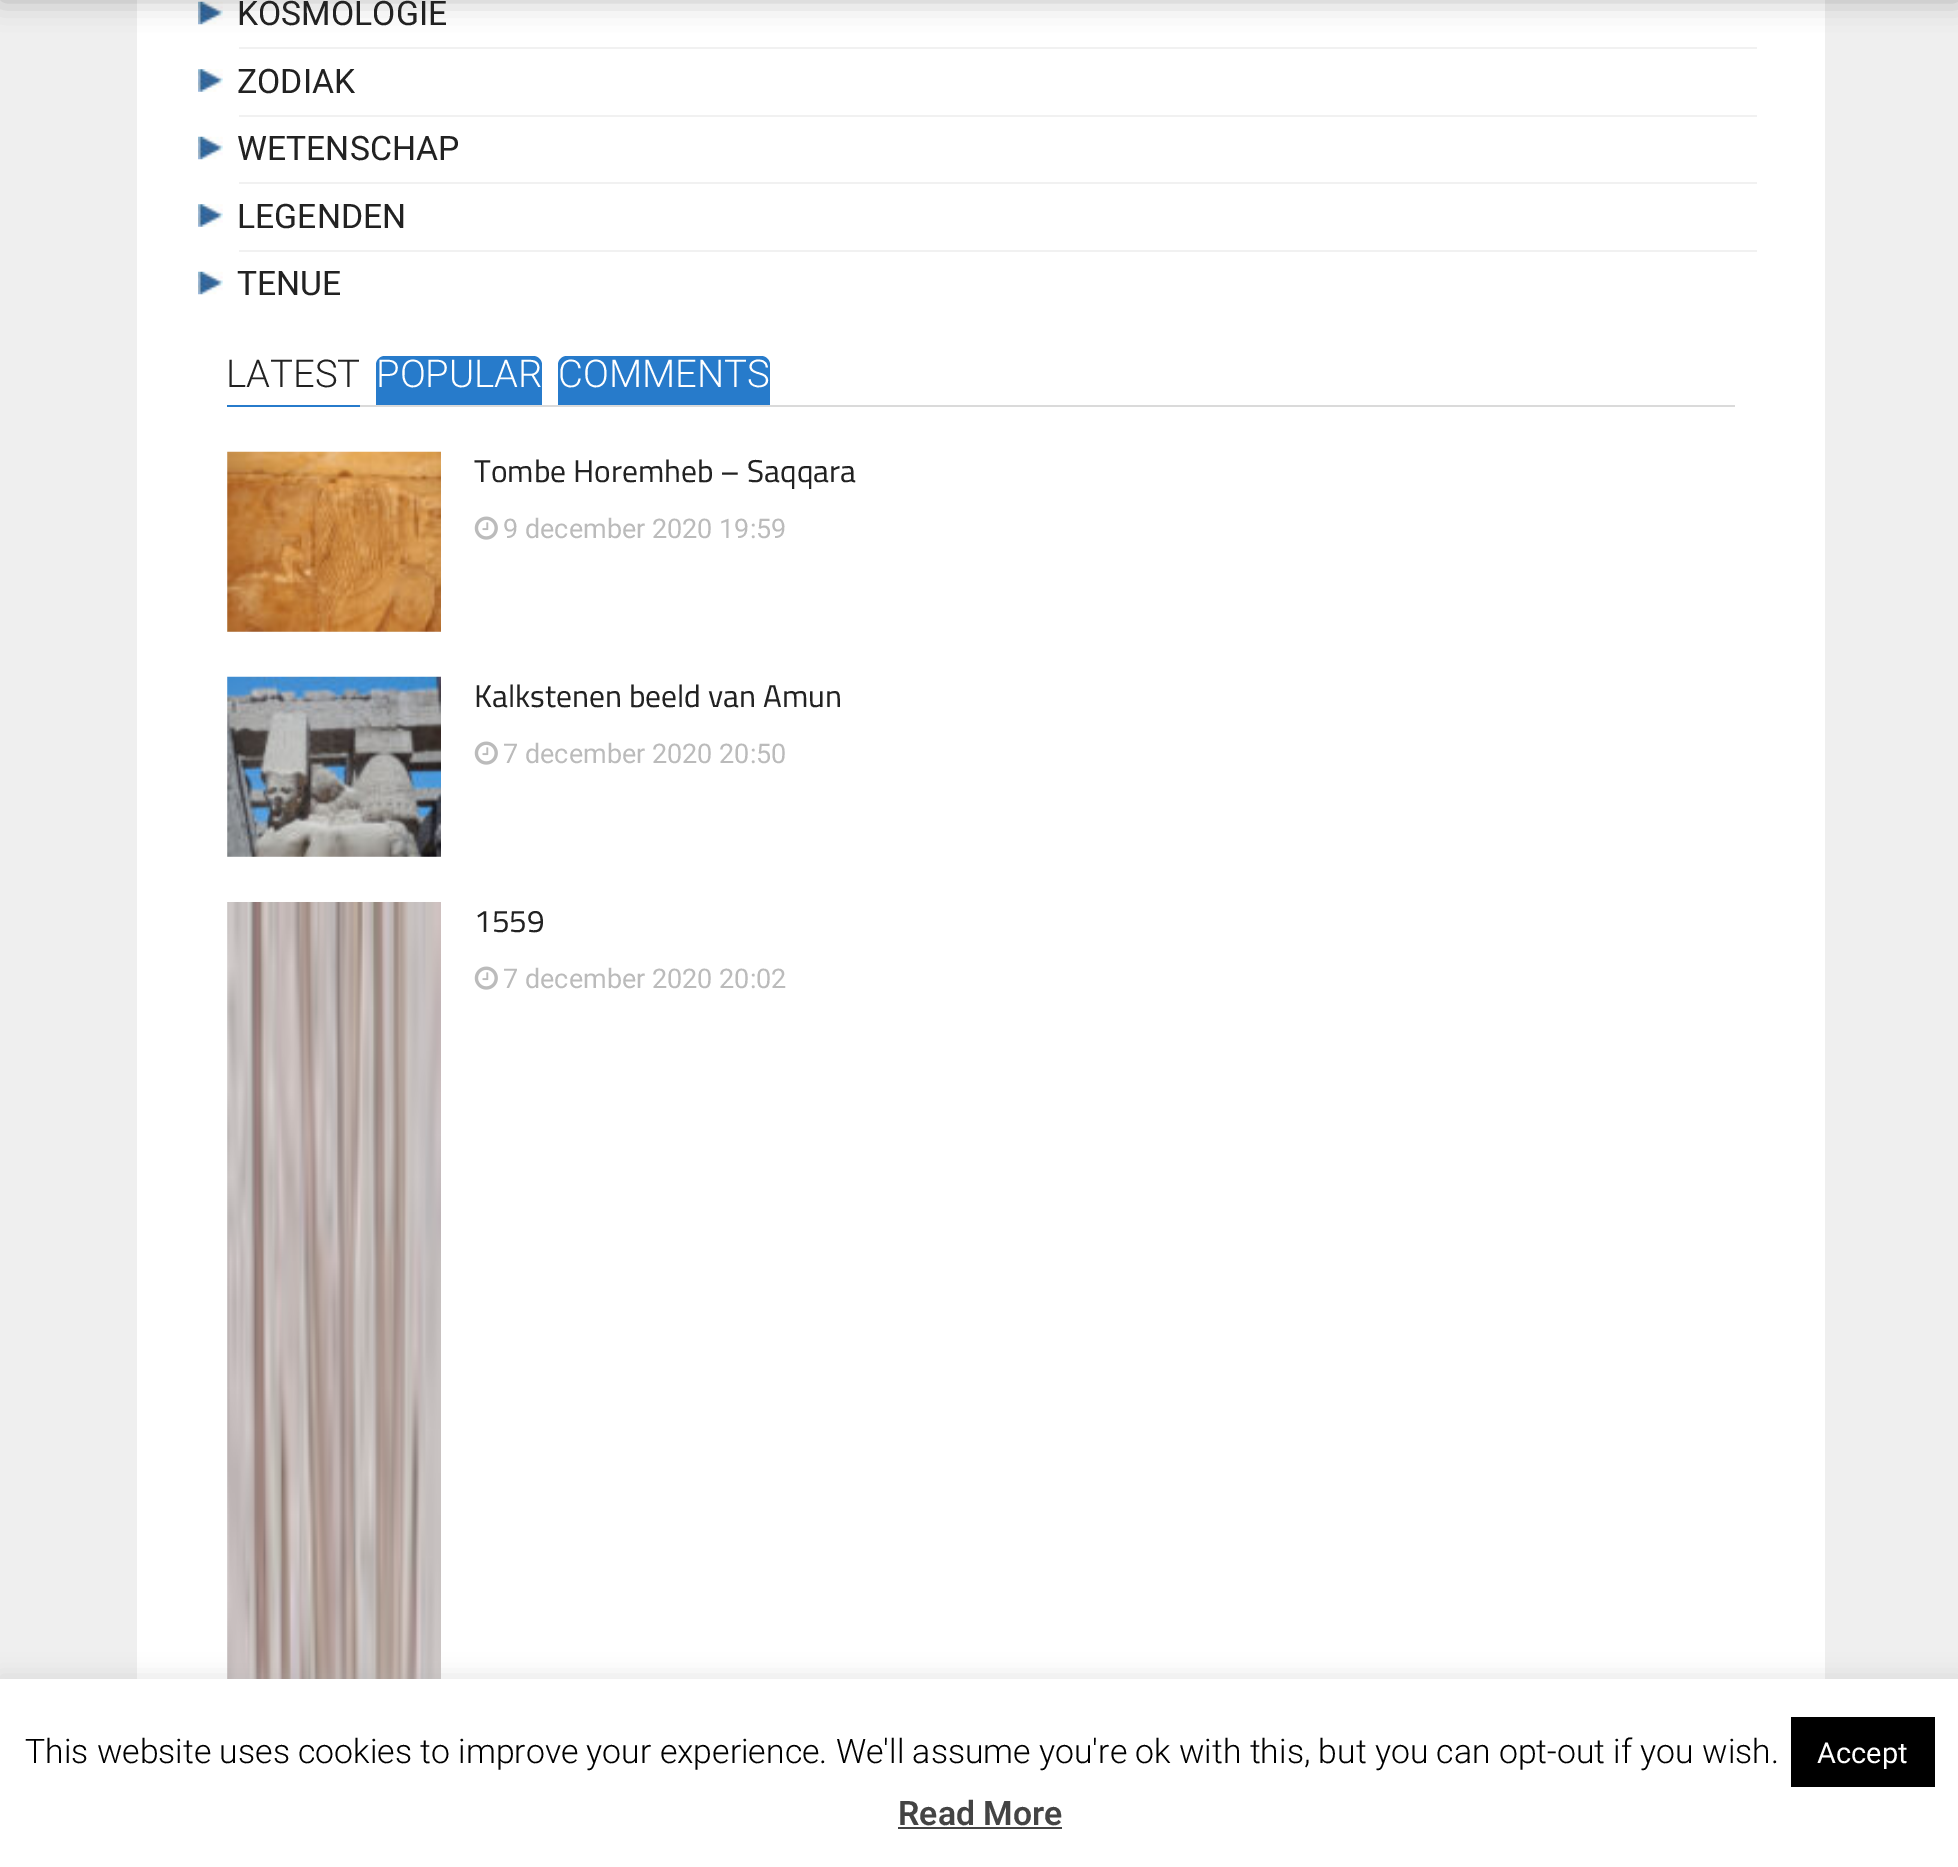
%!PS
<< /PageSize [1958 1867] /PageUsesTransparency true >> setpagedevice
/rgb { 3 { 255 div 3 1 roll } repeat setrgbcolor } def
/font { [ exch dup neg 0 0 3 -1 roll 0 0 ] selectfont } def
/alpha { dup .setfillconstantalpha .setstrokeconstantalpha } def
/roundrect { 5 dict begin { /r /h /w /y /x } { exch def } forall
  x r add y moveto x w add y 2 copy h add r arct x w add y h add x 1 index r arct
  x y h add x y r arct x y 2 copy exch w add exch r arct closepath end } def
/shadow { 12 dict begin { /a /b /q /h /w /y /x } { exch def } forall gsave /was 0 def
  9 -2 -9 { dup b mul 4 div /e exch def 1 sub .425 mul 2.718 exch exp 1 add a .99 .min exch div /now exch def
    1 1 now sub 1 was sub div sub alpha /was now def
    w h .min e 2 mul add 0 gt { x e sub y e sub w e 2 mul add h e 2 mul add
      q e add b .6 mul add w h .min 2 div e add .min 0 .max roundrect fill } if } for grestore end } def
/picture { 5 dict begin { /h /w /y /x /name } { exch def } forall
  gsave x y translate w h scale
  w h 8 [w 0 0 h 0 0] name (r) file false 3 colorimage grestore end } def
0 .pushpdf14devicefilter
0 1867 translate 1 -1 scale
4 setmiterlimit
239 239 239 rgb
0 0 1958 1867 rectfill
255 255 255 rgb
137 0 1688 1679 rectfill
(img/1.rgb) 198 1 25 24 picture
0 0 0 rgb
0 -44 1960 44 0 14.5 0.25 shadow
241 241 241 rgb
239 47 1518 2 rectfill
239 115 1518 2 rectfill
(img/2.rgb) 198 69 25 23 picture
239 182 1518 2 rectfill
(img/1.rgb) 198 136 25 24 picture
239 250 1518 2 rectfill
(img/2.rgb) 198 204 25 23 picture
(img/1.rgb) 198 271 25 24 picture
218 218 218 rgb
360 405 1375 2 rectfill
39 123 203 rgb
227 405 133 2 rectfill
385 356 moveto 533 356 lineto 538 356 542 360 542 365 curveto 542 405 lineto 376 405 lineto 376 365 lineto 376 360 380 356 385 356 curveto closepath fill
567 356 moveto 761 356 lineto 766 356 770 360 770 365 curveto 770 405 lineto 558 405 lineto 558 365 lineto 558 360 562 356 567 356 curveto closepath fill
241 242 244 rgb
227 452 214 180 rectfill
(img/3.rgb) 227 451 214 181 picture
(img/4.rgb) 474 516 24 24 picture
227 677 214 180 rectfill
(img/5.rgb) 227 676 214 181 picture
(img/4.rgb) 474 741 24 24 picture
(img/6.rgb) 227 902 214 777 picture
(img/4.rgb) 474 966 24 24 picture
172 171 171 rgb
0 1676 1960 189 0 11 0.3 shadow
[
  [0 1679 1958 188 255 255 255]
  [1791 1717 144 70 0 0 0]
  [898 1827 164 2 68 68 68]
] { aload pop rgb rectfill } forall
/Roboto-Regular 33.75 font
34 34 34 rgb
[
  [(KOSMOLOGIE) 237 25]
  [(ZODIAK) 237 93]
  [(WETENSCHAP) 237 160]
  [(LEGENDEN) 237 228]
  [(TENUE) 237 295]
] { aload pop moveto show } forall
/Roboto-Light 38.25 font
226 387 moveto (LATEST) show
255 255 255 rgb
376 387 moveto (POPULAR) show
558 387 moveto (COMMENTS) show
/Cairo-Regular 31.5 font
34 34 34 rgb
474 482 moveto (Tombe Horemheb – Saqqara) show
/Roboto-Regular 27 font
187 187 187 rgb
503 538 moveto (9 december 2020 19:59) show
/Cairo-Regular 31.5 font
34 34 34 rgb
474 707 moveto (Kalkstenen beeld van Amun) show
/Roboto-Regular 27 font
187 187 187 rgb
503 763 moveto (7 december 2020 20:50) show
/Cairo-Regular 31.5 font
34 34 34 rgb
474 932 moveto (1559) show
/Roboto-Regular 27 font
187 187 187 rgb
503 988 moveto (7 december 2020 20:02) show
/Roboto-Light 33.75 font
0 0 0 rgb
25 1763 moveto (This website uses cookies to improve your experience. We'll assume you're ok with this, but you can opt-out if you wish.) show
/Roboto-Regular 29 font
255 255 255 rgb
1817 1763 moveto (Accept) show
/Roboto-SemiBold 33.75 font
68 68 68 rgb
898 1825 moveto (Read More) show
.poppdf14devicefilter showpage
